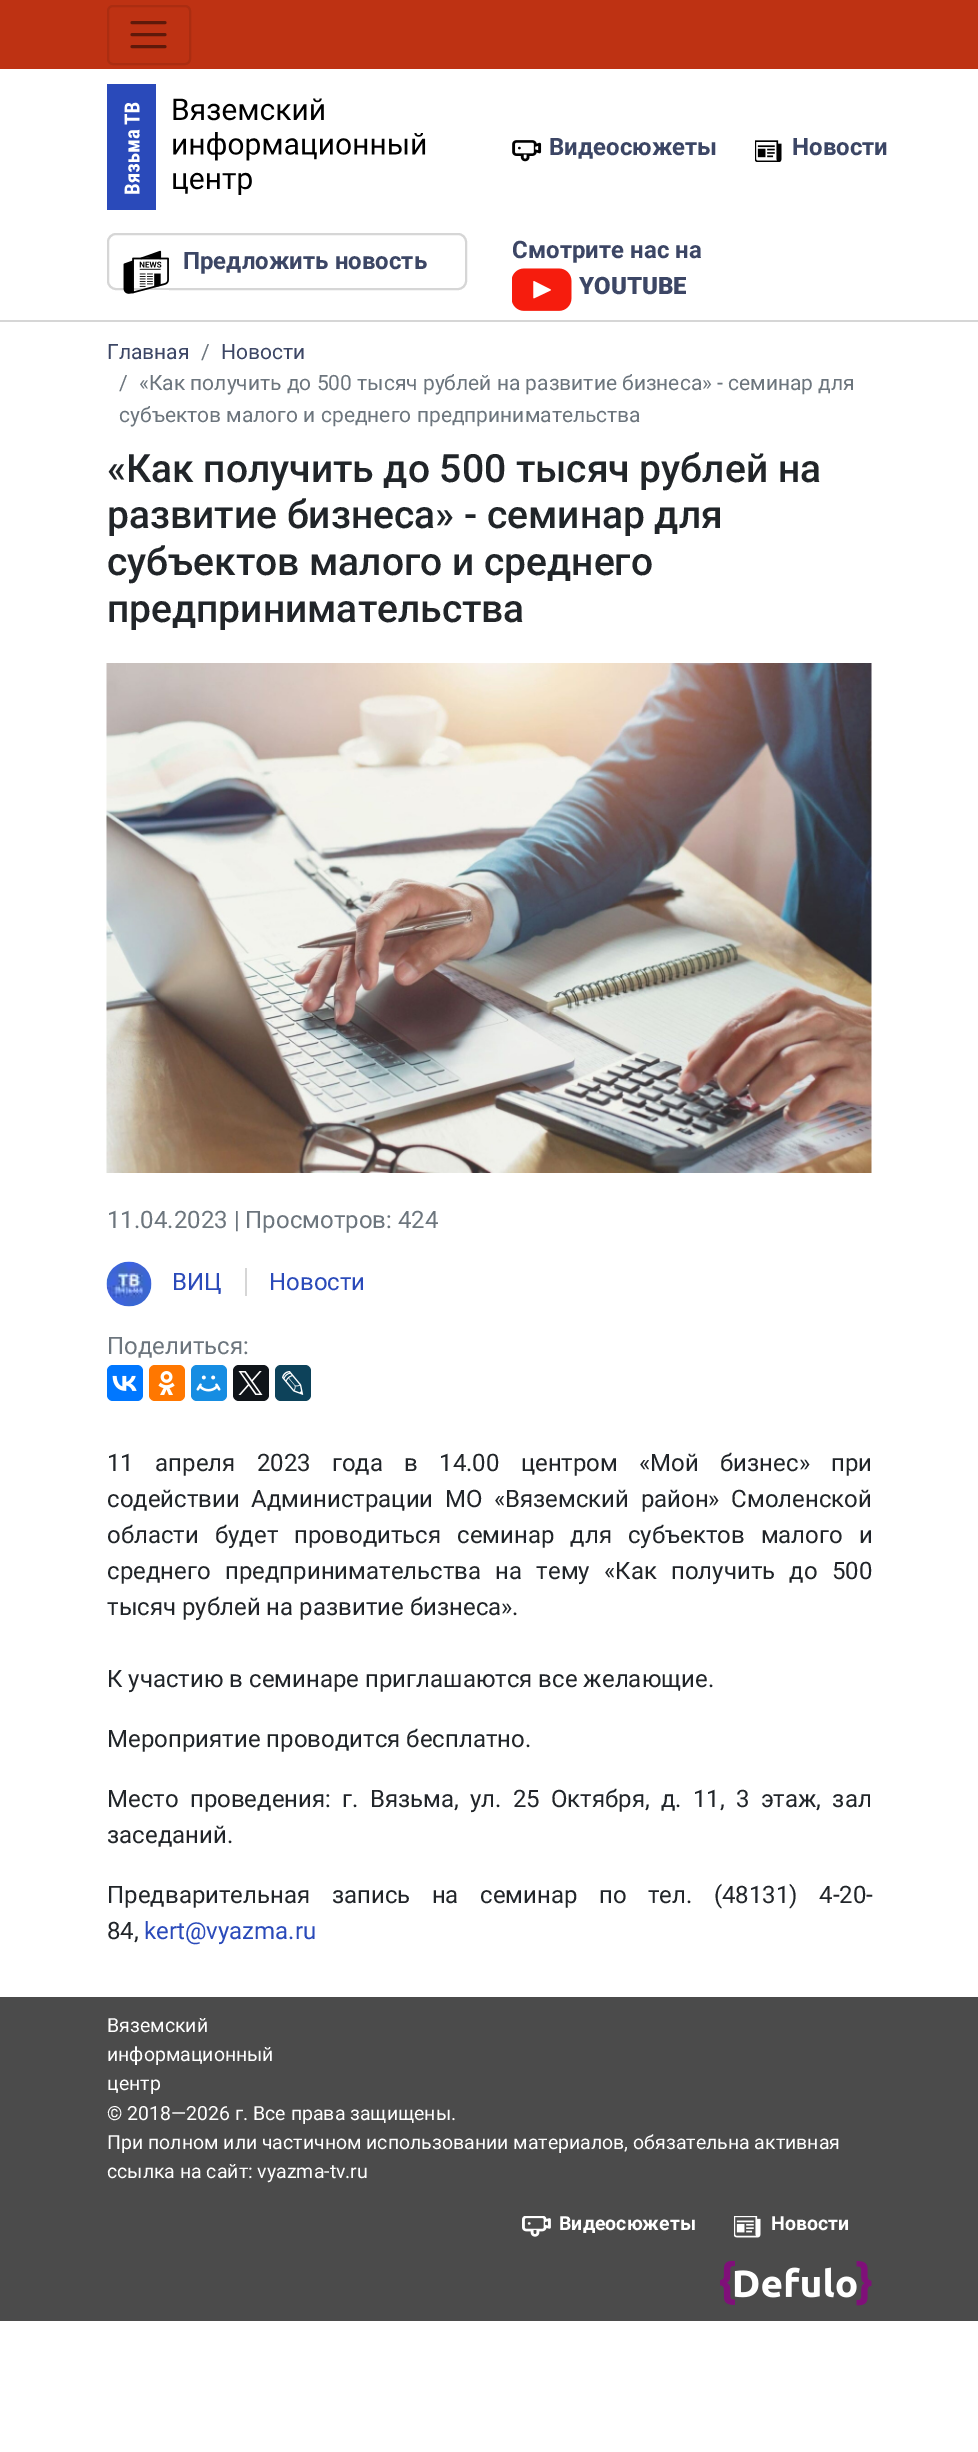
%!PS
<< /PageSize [978 2452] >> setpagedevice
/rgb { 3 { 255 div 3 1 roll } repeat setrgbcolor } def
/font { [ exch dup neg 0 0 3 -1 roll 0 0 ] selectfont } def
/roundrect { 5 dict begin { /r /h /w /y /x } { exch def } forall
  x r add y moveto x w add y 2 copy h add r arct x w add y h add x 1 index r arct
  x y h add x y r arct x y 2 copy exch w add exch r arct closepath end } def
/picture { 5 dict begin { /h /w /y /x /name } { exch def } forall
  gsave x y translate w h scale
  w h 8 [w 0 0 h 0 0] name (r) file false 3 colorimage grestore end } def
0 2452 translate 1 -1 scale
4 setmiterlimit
255 255 255 rgb
0 0 978 2452 rectfill
190 50 19 rgb
0 0 978 69 rectfill
171 45 17 rgb
2 setlinewidth
108 6 82 58 5 roundrect stroke
95 25 10 rgb
3 setlinewidth
1 setlinecap
132 22.5 moveto 165 22.5 lineto 132 34.5 moveto 165 34.5 lineto 132 46.5 moveto 165 46.5 lineto stroke
214 214 214 rgb
0 320 978 2 rectfill
(img/1.rgb) 107 84 319 126 picture
(img/2.rgb) 512 140 30 22 picture
(img/3.rgb) 755 140 27 22 picture
2 setlinewidth
0 setlinecap
108 234 358 55 8 roundrect stroke
(img/4.rgb) 123 250 46 44 picture
(img/5.rgb) 512 268 60 43 picture
(img/6.rgb) 106 663 766 510 picture
(img/7.rgb) 106 1261 46 46 picture
245 1268 2 28 rectfill
0 119 255 rgb
107 1365 36 36 6 roundrect fill
(img/8.rgb) 112 1375 25 16 picture
255 119 0 rgb
149 1365 36 36 6 roundrect fill
(img/9.rgb) 158 1371 17 24 picture
22 141 226 rgb
191 1365 36 36 6 roundrect fill
(img/10.rgb) 196 1375 25 17 picture
15 20 25 rgb
233 1365 36 36 6 roundrect fill
(img/11.rgb) 238 1371 25 24 picture
13 66 90 rgb
275 1365 36 36 6 roundrect fill
(img/12.rgb) 282 1371 22 24 picture
75 75 75 rgb
0 1997 978 324 rectfill
(img/13.rgb) 522 2216 29 21 picture
(img/14.rgb) 734 2216 27 22 picture
(img/15.rgb) 720 2261 152 45 picture
/Roboto-Bold 24 font
60 70 101 rgb
[
  [(Видеосюжеты) 549 155]
  [(Новости) 792 155]
  [(Предложить новость) 183 269]
  [(Смотрите нас на) 512 258]
] { aload pop moveto show } forall
/Roboto-Black 24 font
579 294 moveto (YOUTUBE) show
/Roboto-Regular 21 font
107 359 moveto (Главная) show
108 117 125 rgb
201 359 moveto (/) show
60 70 101 rgb
221 359 moveto (Новости) show
108 117 125 rgb
[
  [(/) 119 390]
  [(«Как получить до 500 тысяч рублей на развитие бизнеса» - семинар для) 139 390]
  [(субъектов малого и среднего предпринимательства) 119 422]
] { aload pop moveto show } forall
/Roboto-Medium 39 font
33 37 41 rgb
[
  [(«Как получить до 500 тысяч рублей на) 107 482]
  [(развитие бизнеса» - семинар для) 107 528]
  [(субъектов малого и среднего) 107 575]
  [(предпринимательства) 107 622]
] { aload pop moveto show } forall
/Roboto-Regular 24 font
108 117 125 rgb
107 1228 moveto (11.04.2023 | Просмотров: 424) show
42 74 186 rgb
172 1290 moveto (ВИЦ) show
269 1290 moveto (Новости) show
108 117 125 rgb
107 1354 moveto (Поделиться:) show
33 37 41 rgb
107 1471 moveto 15.25 0 32 (11 апреля 2023 года в 14.00 центром «Мой бизнес» при) widthshow
107 1507 moveto 5.5 0 32 (содействии Администрации МО «Вяземский район» Смоленской) widthshow
107 1543 moveto 10 0 32 (области будет проводиться семинар для субъектов малого и) widthshow
107 1579 moveto 8.25 0 32 (среднего предпринимательства на тему «Как получить до 500) widthshow
[
  [(тысяч рублей на развитие бизнеса».) 107 1615]
  [(К участию в семинаре приглашаются все желающие.) 107 1687]
  [(Мероприятие проводится бесплатно.) 107 1747]
] { aload pop moveto show } forall
107 1807 moveto 5.25 0 32 (Место проведения: г. Вязьма, ул. 25 Октября, д. 11, 3 этаж, зал) widthshow
107 1843 moveto (заседаний.) show
107 1903 moveto 15.5 0 32 (Предварительная запись на семинар по тел. \(48131\) 4-20-) widthshow
107 1939 moveto (84,) show
42 74 186 rgb
144 1939 moveto (kert@vyazma.ru) show
/Roboto-Regular 19.5 font
255 255 255 rgb
[
  [(Вяземский) 107 2032]
  [(информационный) 107 2061]
  [(центр) 107 2090]
  [(© 2018—2026 г. Все права защищены.) 107 2120]
  [(При полном или частичном использовании материалов, обязательна активная) 107 2149]
  [(ссылка на сайт: vyazma-tv.ru) 107 2178]
] { aload pop moveto show } forall
/Roboto-Bold 19.5 font
559 2230 moveto (Видеосюжеты) show
771 2230 moveto (Новости) show
showpage
